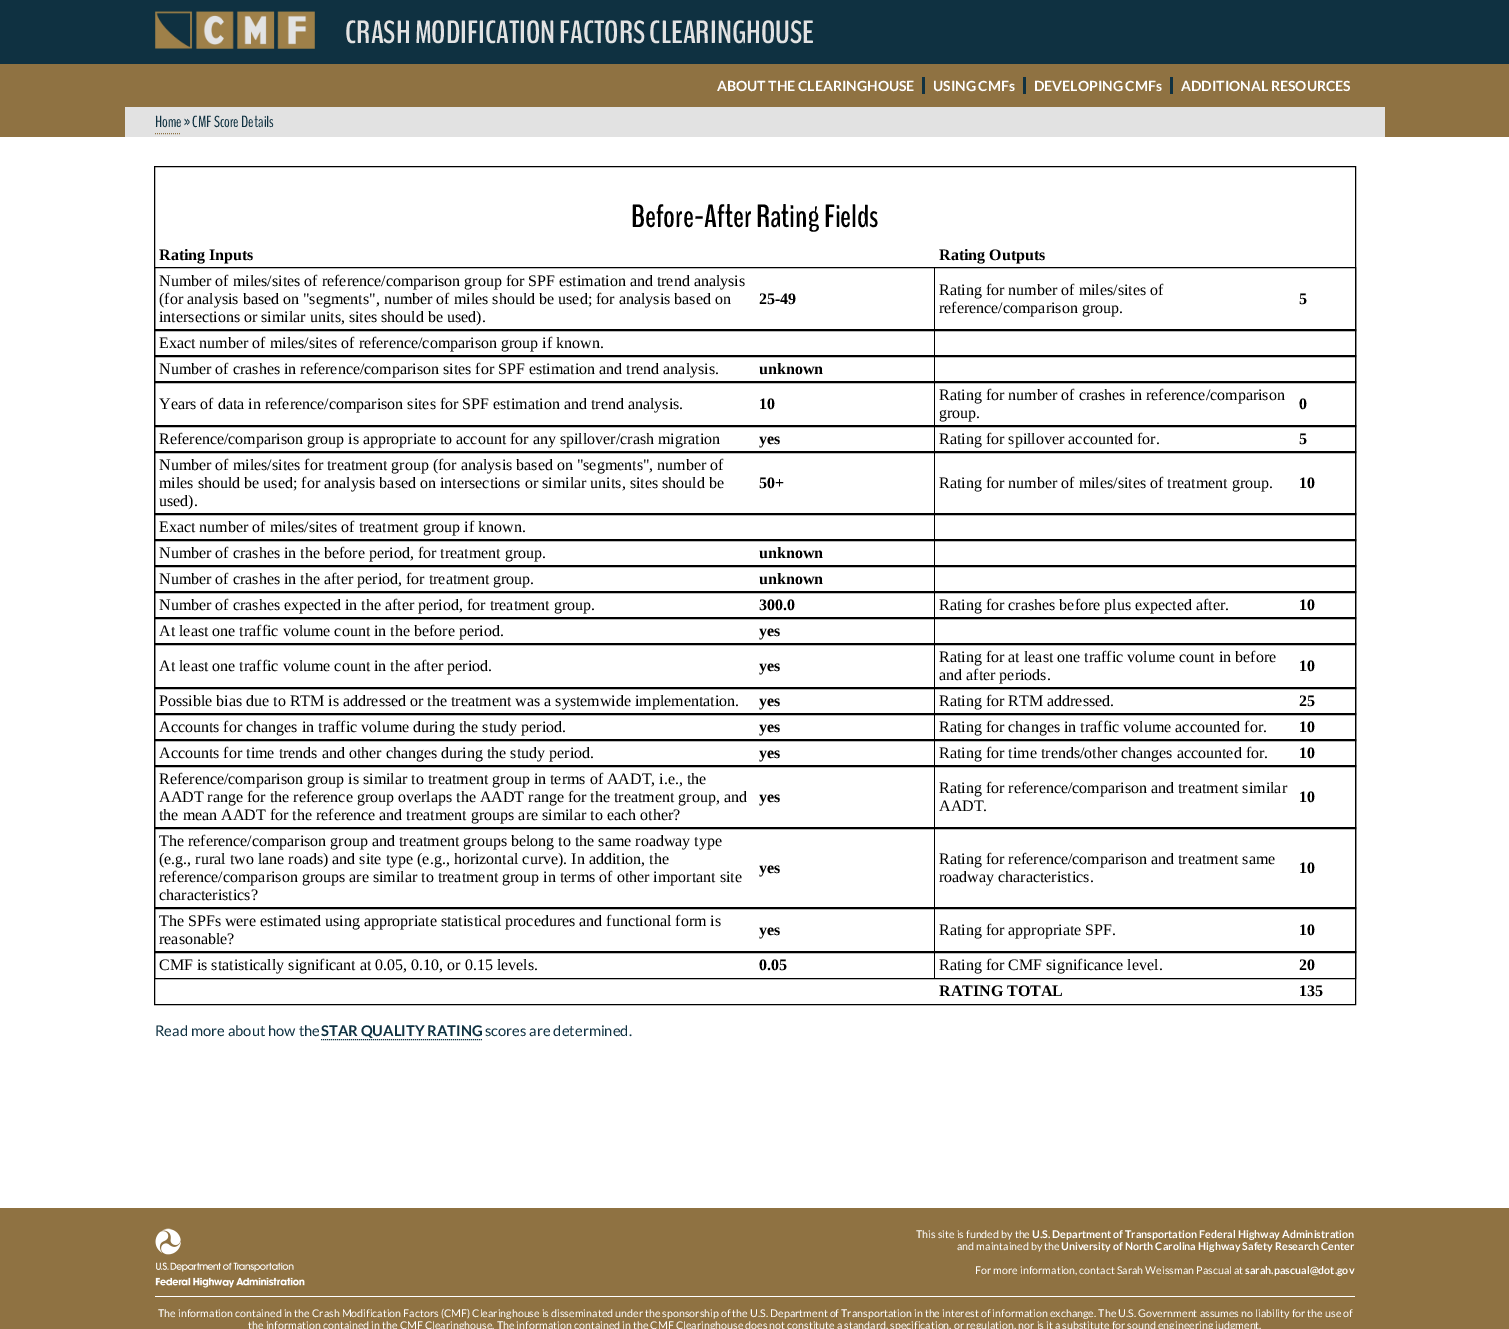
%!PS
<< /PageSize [1509 1329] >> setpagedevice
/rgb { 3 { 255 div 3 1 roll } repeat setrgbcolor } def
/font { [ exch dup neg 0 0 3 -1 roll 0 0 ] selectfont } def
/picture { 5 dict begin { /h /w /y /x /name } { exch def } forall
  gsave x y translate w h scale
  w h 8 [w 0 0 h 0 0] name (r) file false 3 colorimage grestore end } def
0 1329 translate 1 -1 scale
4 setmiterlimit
143 114 66 rgb
0 0 1509 1329 rectfill
15 49 65 rgb
0 0 1509 64 rectfill
(img/1.rgb) 155 11 160 38 picture
[
  [922 77 3 17 15 49 65]
  [1023 77 3 17 15 49 65]
  [1170 77 3 17 15 49 65]
  [125 107 1260 30 226 226 226]
] { aload pop rgb rectfill } forall
143 114 66 rgb
[1 1] 0 setdash
155 133.5 moveto 181 133.5 lineto stroke
255 255 255 rgb
0 137 1509 1071 rectfill
0 0 0 rgb
934 267 1 711 rectfill
[] 0 setdash
154.5 267.5 1201 63 rectstroke
154.5 329.5 1201 27 rectstroke
154.5 355.5 1201 27 rectstroke
154.5 381.5 1201 45 rectstroke
154.5 425.5 1201 27 rectstroke
154.5 451.5 1201 63 rectstroke
154.5 513.5 1201 27 rectstroke
154.5 539.5 1201 27 rectstroke
154.5 565.5 1201 27 rectstroke
154.5 591.5 1201 27 rectstroke
154.5 617.5 1201 27 rectstroke
154.5 643.5 1201 45 rectstroke
154.5 687.5 1201 27 rectstroke
154.5 713.5 1201 27 rectstroke
154.5 739.5 1201 27 rectstroke
154.5 765.5 1201 63 rectstroke
154.5 827.5 1201 81 rectstroke
154.5 907.5 1201 45 rectstroke
154.5 951.5 1201 27 rectstroke
154.5 166.5 1201 838 rectstroke
15 49 65 rgb
[1 1] 0 setdash
321 1039.5 moveto 482 1039.5 lineto stroke
(img/2.rgb) 155 1228 150 60 picture
255 255 255 rgb
155 1296 1200 1 rectfill
/BenchNine-Bold 32 font
226 226 226 rgb
345 43 moveto (CRASH MODIFICATION FACTORS CLEARINGHOUSE) show
/Lato-Bold 14 font
255 255 255 rgb
[
  [(ABOUT THE CLEARINGHOUSE) 717 91]
  [(USING CMFs) 933 91]
  [(DEVELOPING CMFs) 1034 91]
  [(ADDITIONAL RESOURCES) 1181 91]
] { aload pop moveto show } forall
/BenchNine-Regular 16 font
15 49 65 rgb
155 127 moveto (Home » CMF Score Details) show
/BenchNine-Bold 32 font
0 0 0 rgb
631 227 moveto (Before-After Rating Fields) show
/LiberationSerif-Bold 16 font
159 260 moveto (Rating Inputs) show
939 260 moveto (Rating Outputs) show
/LiberationSerif-Regular 16 font
[
  [(Number of miles/sites of reference/comparison group for SPF estimation and trend analysis) 159 286]
  [(\(for analysis based on "segments", number of miles should be used; for analysis based on) 159 304]
  [(intersections or similar units, sites should be used\).) 159 322]
] { aload pop moveto show } forall
/LiberationSerif-Bold 16 font
759 304 moveto (25-49) show
/LiberationSerif-Regular 16 font
939 295 moveto (Rating for number of miles/sites of) show
939 313 moveto (reference/comparison group.) show
/LiberationSerif-Bold 16 font
1299 304 moveto (5) show
/LiberationSerif-Regular 16 font
159 348 moveto (Exact number of miles/sites of reference/comparison group if known.) show
159 374 moveto (Number of crashes in reference/comparison sites for SPF estimation and trend analysis.) show
/LiberationSerif-Bold 16 font
759 374 moveto (unknown) show
/LiberationSerif-Regular 16 font
159 409 moveto (Years of data in reference/comparison sites for SPF estimation and trend analysis.) show
/LiberationSerif-Bold 16 font
759 409 moveto (10) show
/LiberationSerif-Regular 16 font
939 400 moveto (Rating for number of crashes in reference/comparison) show
939 418 moveto (group.) show
/LiberationSerif-Bold 16 font
1299 409 moveto (0) show
/LiberationSerif-Regular 16 font
159 444 moveto (Reference/comparison group is appropriate to account for any spillover/crash migration) show
/LiberationSerif-Bold 16 font
759 444 moveto (yes) show
/LiberationSerif-Regular 16 font
939 444 moveto (Rating for spillover accounted for.) show
/LiberationSerif-Bold 16 font
1299 444 moveto (5) show
/LiberationSerif-Regular 16 font
[
  [(Number of miles/sites for treatment group \(for analysis based on "segments", number of) 159 470]
  [(miles should be used; for analysis based on intersections or similar units, sites should be) 159 488]
  [(used\).) 159 506]
] { aload pop moveto show } forall
/LiberationSerif-Bold 16 font
759 488 moveto (50+) show
/LiberationSerif-Regular 16 font
939 488 moveto (Rating for number of miles/sites of treatment group.) show
/LiberationSerif-Bold 16 font
1299 488 moveto (10) show
/LiberationSerif-Regular 16 font
159 532 moveto (Exact number of miles/sites of treatment group if known.) show
159 558 moveto (Number of crashes in the before period, for treatment group.) show
/LiberationSerif-Bold 16 font
759 558 moveto (unknown) show
/LiberationSerif-Regular 16 font
159 584 moveto (Number of crashes in the after period, for treatment group.) show
/LiberationSerif-Bold 16 font
759 584 moveto (unknown) show
/LiberationSerif-Regular 16 font
159 610 moveto (Number of crashes expected in the after period, for treatment group.) show
/LiberationSerif-Bold 16 font
759 610 moveto (300.0) show
/LiberationSerif-Regular 16 font
939 610 moveto (Rating for crashes before plus expected after.) show
/LiberationSerif-Bold 16 font
1299 610 moveto (10) show
/LiberationSerif-Regular 16 font
159 636 moveto (At least one traffic volume count in the before period.) show
/LiberationSerif-Bold 16 font
759 636 moveto (yes) show
/LiberationSerif-Regular 16 font
159 671 moveto (At least one traffic volume count in the after period.) show
/LiberationSerif-Bold 16 font
759 671 moveto (yes) show
/LiberationSerif-Regular 16 font
939 662 moveto (Rating for at least one traffic volume count in before) show
939 680 moveto (and after periods.) show
/LiberationSerif-Bold 16 font
1299 671 moveto (10) show
/LiberationSerif-Regular 16 font
159 706 moveto (Possible bias due to RTM is addressed or the treatment was a systemwide implementation.) show
/LiberationSerif-Bold 16 font
759 706 moveto (yes) show
/LiberationSerif-Regular 16 font
939 706 moveto (Rating for RTM addressed.) show
/LiberationSerif-Bold 16 font
1299 706 moveto (25) show
/LiberationSerif-Regular 16 font
159 732 moveto (Accounts for changes in traffic volume during the study period.) show
/LiberationSerif-Bold 16 font
759 732 moveto (yes) show
/LiberationSerif-Regular 16 font
939 732 moveto (Rating for changes in traffic volume accounted for.) show
/LiberationSerif-Bold 16 font
1299 732 moveto (10) show
/LiberationSerif-Regular 16 font
159 758 moveto (Accounts for time trends and other changes during the study period.) show
/LiberationSerif-Bold 16 font
759 758 moveto (yes) show
/LiberationSerif-Regular 16 font
939 758 moveto (Rating for time trends/other changes accounted for.) show
/LiberationSerif-Bold 16 font
1299 758 moveto (10) show
/LiberationSerif-Regular 16 font
[
  [(Reference/comparison group is similar to treatment group in terms of AADT, i.e., the) 159 784]
  [(AADT range for the reference group overlaps the AADT range for the treatment group, and) 159 802]
  [(the mean AADT for the reference and treatment groups are similar to each other?) 159 820]
] { aload pop moveto show } forall
/LiberationSerif-Bold 16 font
759 802 moveto (yes) show
/LiberationSerif-Regular 16 font
939 793 moveto (Rating for reference/comparison and treatment similar) show
939 811 moveto (AADT.) show
/LiberationSerif-Bold 16 font
1299 802 moveto (10) show
/LiberationSerif-Regular 16 font
[
  [(The reference/comparison group and treatment groups belong to the same roadway type) 159 846]
  [(\(e.g., rural two lane roads\) and site type \(e.g., horizontal curve\). In addition, the) 159 864]
  [(reference/comparison groups are similar to treatment group in terms of other important site) 159 882]
  [(characteristics?) 159 900]
] { aload pop moveto show } forall
/LiberationSerif-Bold 16 font
759 873 moveto (yes) show
/LiberationSerif-Regular 16 font
939 864 moveto (Rating for reference/comparison and treatment same) show
939 882 moveto (roadway characteristics.) show
/LiberationSerif-Bold 16 font
1299 873 moveto (10) show
/LiberationSerif-Regular 16 font
159 926 moveto (The SPFs were estimated using appropriate statistical procedures and functional form is) show
159 944 moveto (reasonable?) show
/LiberationSerif-Bold 16 font
759 935 moveto (yes) show
/LiberationSerif-Regular 16 font
939 935 moveto (Rating for appropriate SPF.) show
/LiberationSerif-Bold 16 font
1299 935 moveto (10) show
/LiberationSerif-Regular 16 font
159 970 moveto (CMF is statistically significant at 0.05, 0.10, or 0.15 levels.) show
/LiberationSerif-Bold 16 font
759 970 moveto (0.05) show
/LiberationSerif-Regular 16 font
939 970 moveto (Rating for CMF significance level.) show
/LiberationSerif-Bold 16 font
[
  [(20) 1299 970]
  [(RATING TOTAL) 939 996]
  [(135) 1299 996]
] { aload pop moveto show } forall
/Lato-Regular 14.75 font
15 49 65 rgb
155 1036 moveto (Read more about how the) show
/Lato-Bold 14.75 font
321 1036 moveto (STAR QUALITY RATING) show
/Lato-Regular 14.75 font
485 1036 moveto (scores are determined.) show
/Lato-Regular 10.67 font
255 255 255 rgb
916 1238 moveto (This site is funded by the) show
/Lato-Bold 10.67 font
1032 1238 moveto (U.S. Department of Transportation Federal Highway Administration) show
/Lato-Regular 10.67 font
957 1250 moveto (and maintained by the) show
/Lato-Bold 10.67 font
1061 1250 moveto (University of North Carolina Highway Safety Research Center) show
/Lato-Regular 10.67 font
975 1274 moveto (For more information, contact Sarah Weissman Pascual at) show
/Lato-Bold 10.67 font
1245 1274 moveto (sarah.pascual@dot.gov) show
/Lato-Regular 10.67 font
158 1317 moveto (The information contained in the Crash Modification Factors \(CMF\) Clearinghouse is disseminated under the sponsorship of the U.S. Department of Transportation in the interest of information exchange. The U.S. Government assumes no liability for the use of) show
248 1329 moveto (the information contained in the CMF Clearinghouse. The information contained in the CMF Clearinghouse does not constitute a standard, specification, or regulation, nor is it a substitute for sound engineering judgment.) show
showpage
